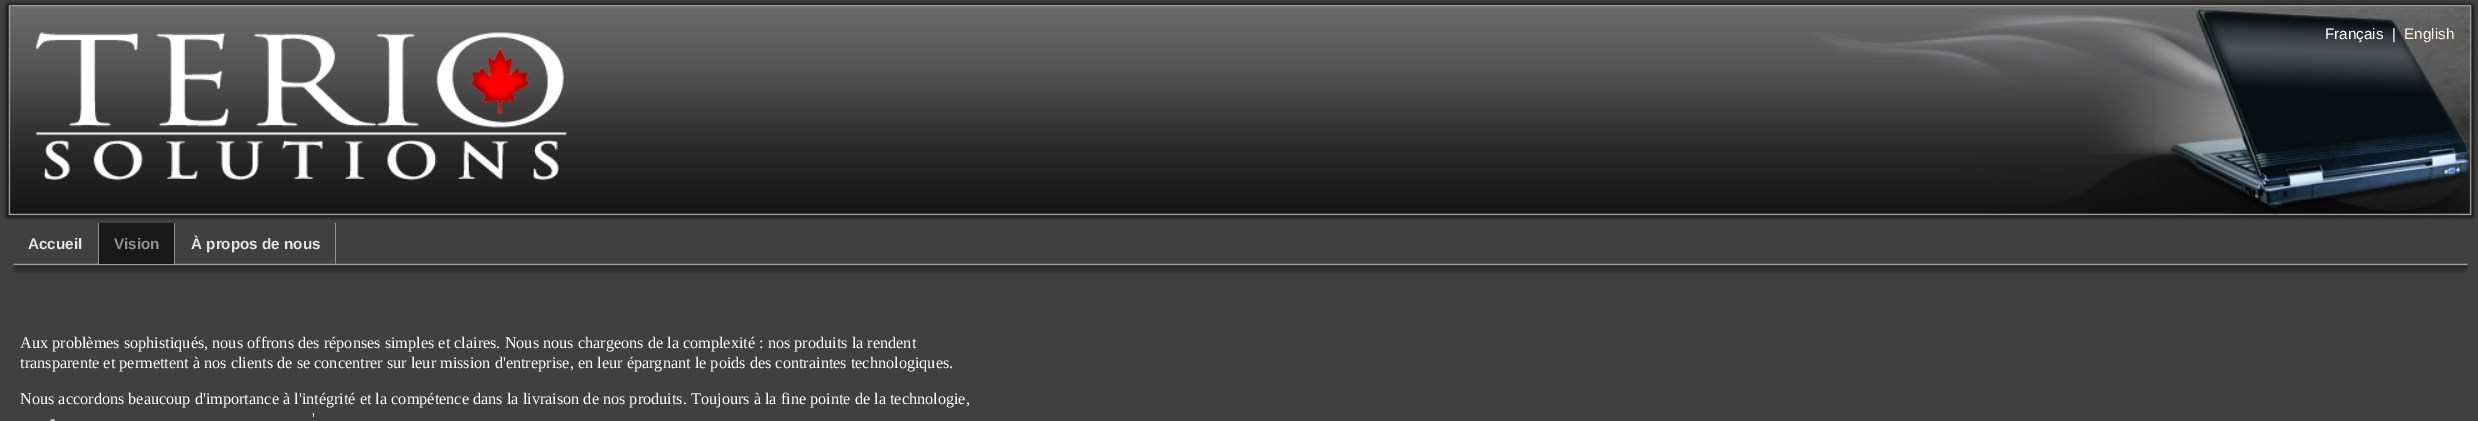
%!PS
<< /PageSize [2478 421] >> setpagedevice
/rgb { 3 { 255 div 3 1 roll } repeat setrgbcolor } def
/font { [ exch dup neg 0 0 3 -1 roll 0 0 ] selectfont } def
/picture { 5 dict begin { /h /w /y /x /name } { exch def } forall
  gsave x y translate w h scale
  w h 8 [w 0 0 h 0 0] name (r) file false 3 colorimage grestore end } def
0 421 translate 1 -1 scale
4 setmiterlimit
64 64 64 rgb
0 0 2478 421 rectfill
(img/1.rgb) 11 1 2143 219 picture
(img/2.rgb) 0 1 11 219 picture
(img/3.rgb) 1812 32 105 25 picture
(img/4.rgb) 1916 14 238 199 picture
(img/5.rgb) 2154 0 324 220 picture
(img/6.rgb) 35 32 532 149 picture
(img/7.rgb) 13 263 2455 10 picture
[
  [98 223 1 41 145 145 145]
  [99 223 75 41 24 24 24]
  [174 223 1 41 145 145 145]
  [335 223 1 41 145 145 145]
] { aload pop rgb rectfill } forall
/LiberationSans-Regular 15.25 font
255 255 255 rgb
2325 39 moveto (Français) show
2392 39 moveto (|) show
255 246 219 rgb
2404 39 moveto (English) show
/LiberationSans-Bold 15.25 font
229 229 229 rgb
28 249 moveto (Accueil) show
145 145 145 rgb
114 249 moveto (Vision) show
229 229 229 rgb
191 249 moveto (À propos de nous) show
/LiberationSerif-Regular 16.25 font
255 255 255 rgb
[
  [(Aux problèmes sophistiqués, nous offrons des réponses simples et claires. Nous nous chargeons de la complexité : nos produits la rendent) 20 348]
  [(transparente et permettent à nos clients de se concentrer sur leur mission d'entreprise, en leur épargnant le poids des contraintes technologiques.) 20 368]
  [(Nous accordons beaucoup d'importance à l'intégrité et la compétence dans la livraison de nos produits. Toujours à la fine pointe de la technologie,) 20 404]
  [(') 312 424]
  [(-) 50 424]
] { aload pop moveto show } forall
showpage
